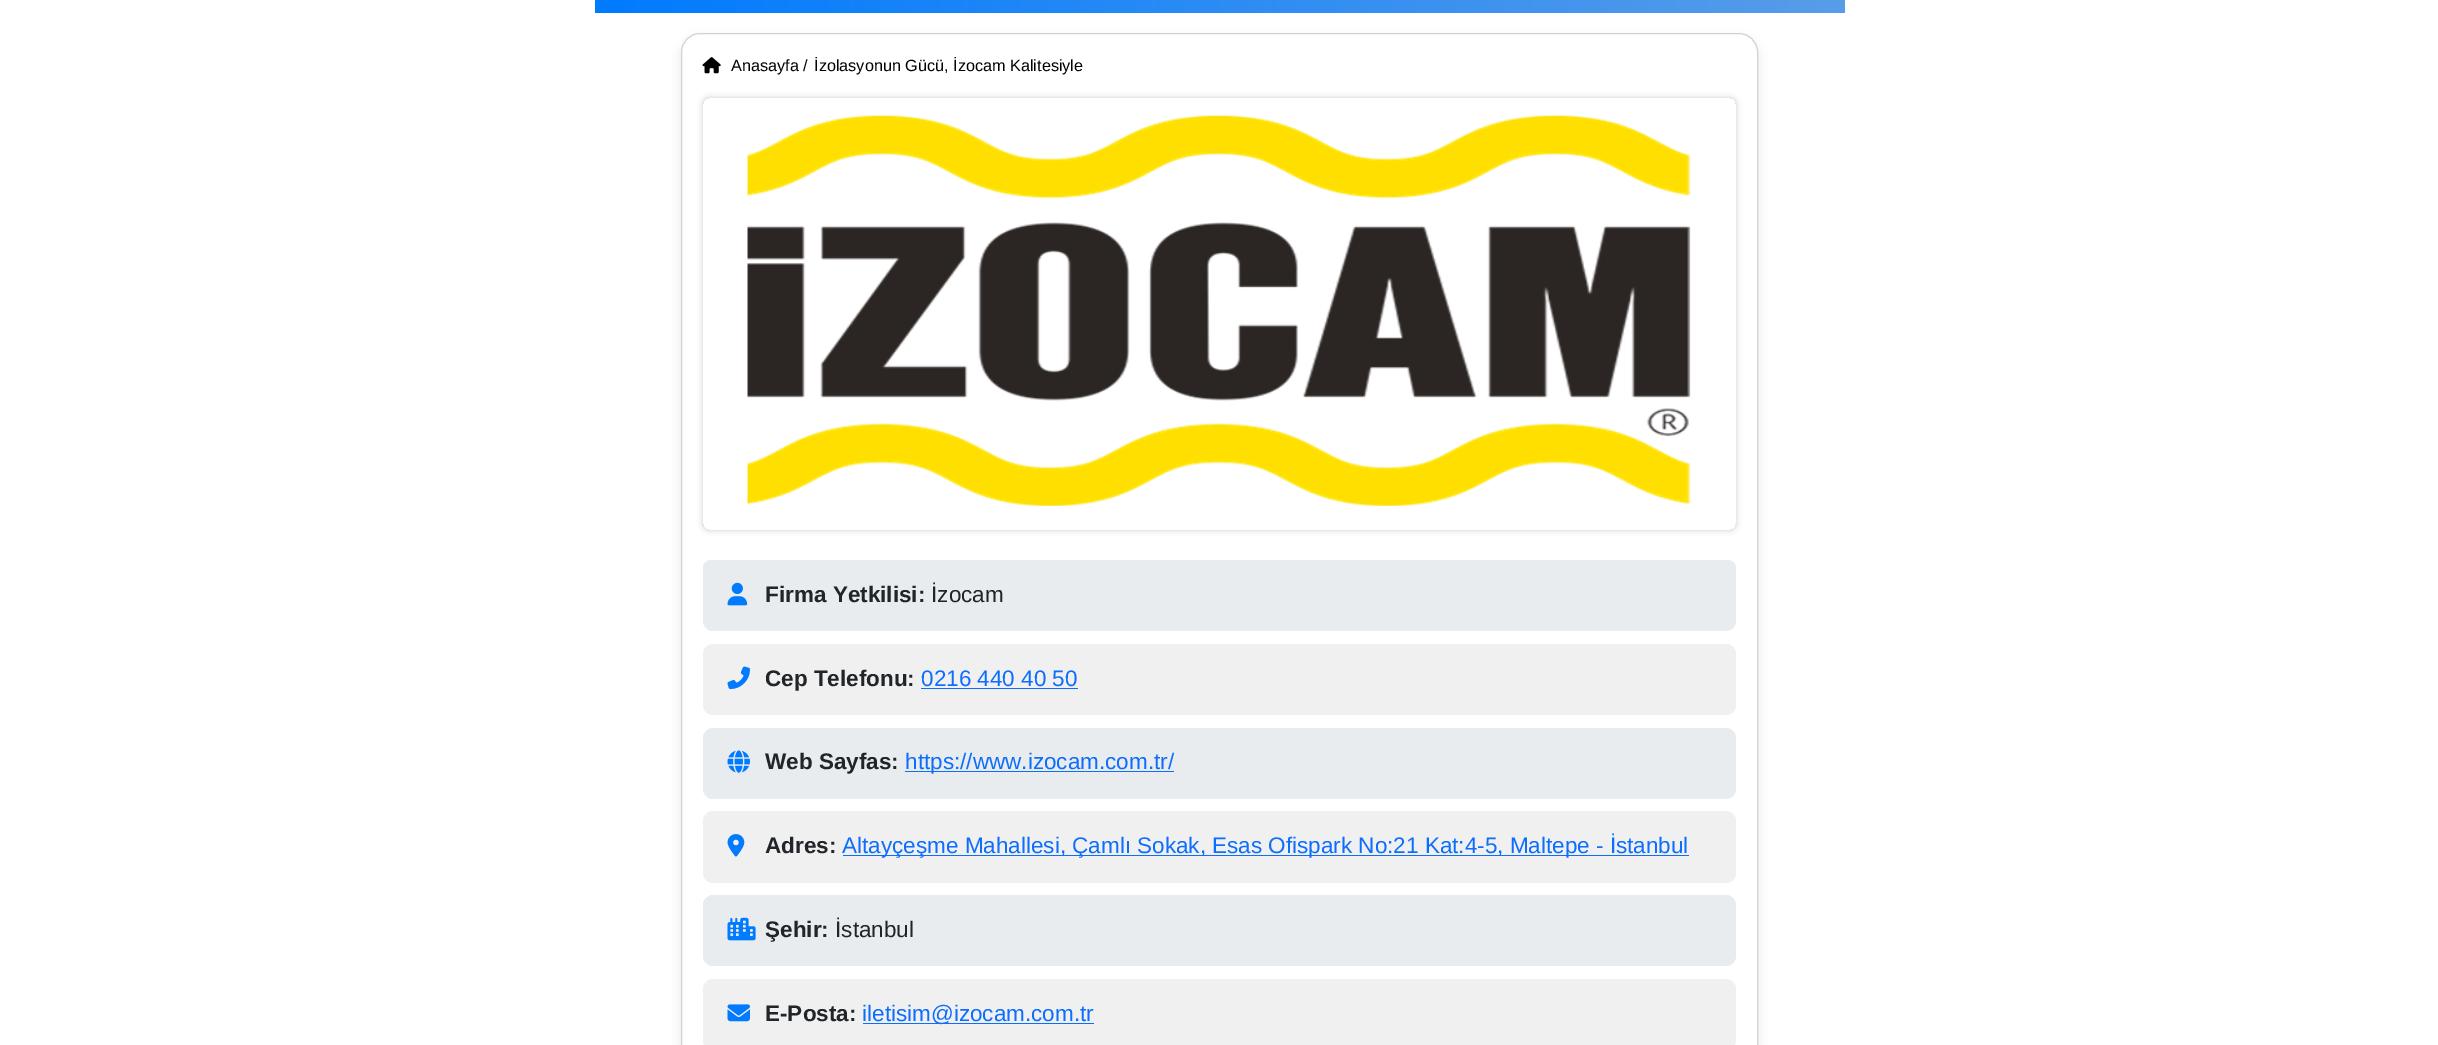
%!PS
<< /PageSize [2438 1045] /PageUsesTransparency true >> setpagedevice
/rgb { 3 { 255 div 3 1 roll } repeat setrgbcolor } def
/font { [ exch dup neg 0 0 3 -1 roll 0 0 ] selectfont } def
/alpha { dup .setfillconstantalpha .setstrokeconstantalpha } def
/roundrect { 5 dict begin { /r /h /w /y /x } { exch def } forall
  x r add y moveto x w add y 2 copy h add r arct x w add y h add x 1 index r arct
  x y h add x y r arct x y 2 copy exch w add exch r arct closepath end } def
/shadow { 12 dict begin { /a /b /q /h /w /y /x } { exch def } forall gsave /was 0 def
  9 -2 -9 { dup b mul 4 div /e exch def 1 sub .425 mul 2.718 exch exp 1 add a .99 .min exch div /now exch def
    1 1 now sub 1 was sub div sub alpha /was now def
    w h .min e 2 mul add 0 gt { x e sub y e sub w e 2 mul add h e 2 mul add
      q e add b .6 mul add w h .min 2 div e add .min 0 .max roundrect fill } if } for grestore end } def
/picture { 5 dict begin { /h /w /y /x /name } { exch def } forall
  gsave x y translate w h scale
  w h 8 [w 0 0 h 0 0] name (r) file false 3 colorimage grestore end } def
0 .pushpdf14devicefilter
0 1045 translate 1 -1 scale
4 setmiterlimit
255 255 255 rgb
0 0 2438 1045 rectfill
gsave 595 0 moveto 1845 0 lineto 1845 13 lineto 595 13 lineto closepath clip newpath
<< /ShadingType 2 /ColorSpace /DeviceRGB /Coords [1819 -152 621 125] /Extend [true true] /Function << /FunctionType 2 /Domain [0 1] /C0 [0.349 0.616 0.91] /C1 [0 0.482 1] /N 1 >> >> shfill grestore
0 0 0 rgb
681 38 1077 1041 19 5 0.1 shadow
255 255 255 rgb
681.5 33.5 1076 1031 18.5 roundrect gsave fill grestore
210 210 210 rgb
stroke
(img/1.rgb) 702 57 19 17 picture
gsave
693 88 moveto 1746 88 lineto 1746 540 lineto 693 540 lineto closepath 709 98 moveto 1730 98 lineto 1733.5 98 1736 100.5 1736 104 curveto 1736 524 lineto 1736 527.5 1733.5 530 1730 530 curveto 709 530 lineto 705.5 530 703 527.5 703 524 curveto 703 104 lineto 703 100.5 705.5 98 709 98 curveto closepath eoclip newpath
0 0 0 rgb
703 98 1033 432 6 3 0.2 shadow
grestore
(img/2.rgb) 747 115 944 391 picture
233 236 239 rgb
711 560 moveto 1728 560 lineto 1732.5 560 1736 563.5 1736 568 curveto 1736 621 lineto 1736 626.5 1731.5 631 1726 631 curveto 713 631 lineto 707.5 631 703 626.5 703 621 curveto 703 568 lineto 703 563.5 706.5 560 711 560 curveto closepath fill
(img/3.rgb) 727 582 21 24 picture
240 240 240 rgb
703 644 1033 71 10 roundrect fill
(img/4.rgb) 727 666 23 24 picture
13 110 253 rgb
921 688 157 1 rectfill
233 236 239 rgb
703 728 1033 71 10 roundrect fill
(img/5.rgb) 727 750 23 23 picture
13 110 253 rgb
905 771 269 1 rectfill
240 240 240 rgb
703 811 1033 72 10 roundrect fill
(img/6.rgb) 727 834 18 23 picture
13 110 253 rgb
843 855 846 1 rectfill
233 236 239 rgb
703 895 1033 71 10 roundrect fill
(img/7.rgb) 727 917 29 24 picture
240 240 240 rgb
703 979 1033 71 10 roundrect fill
(img/8.rgb) 727 1004 23 18 picture
13 110 253 rgb
863 1023 231 1 rectfill
/LiberationSans-Regular 16.25 font
0 0 0 rgb
731 71 moveto (Anasayfa /) show
814 71 moveto (İzolasyonun Gücü, İzocam Kalitesiyle) show
/LiberationSans-Bold 22.5 font
33 37 41 rgb
765 602 moveto (Firma Yetkilisi:) show
/LiberationSans-Regular 22.5 font
931 602 moveto (İzocam) show
/LiberationSans-Bold 22.5 font
765 686 moveto (Cep Telefonu:) show
/LiberationSans-Regular 22.5 font
13 110 253 rgb
921 686 moveto (0216 440 40 50) show
/LiberationSans-Bold 22.5 font
33 37 41 rgb
765 769 moveto (Web Sayfas:) show
/LiberationSans-Regular 22.5 font
13 110 253 rgb
905 769 moveto (https://www.izocam.com.tr/) show
/LiberationSans-Bold 22.5 font
33 37 41 rgb
765 853 moveto (Adres:) show
/LiberationSans-Regular 22.5 font
13 110 253 rgb
842 853 moveto (Altayçeşme Mahallesi, Çamlı Sokak, Esas Ofispark No:21 Kat:4-5, Maltepe - İstanbul) show
/LiberationSans-Bold 22.5 font
33 37 41 rgb
765 937 moveto (Şehir:) show
/LiberationSans-Regular 22.5 font
835 937 moveto (İstanbul) show
/LiberationSans-Bold 22.5 font
765 1021 moveto (E-Posta:) show
/LiberationSans-Regular 22.5 font
13 110 253 rgb
862 1021 moveto (iletisim@izocam.com.tr) show
.poppdf14devicefilter showpage
